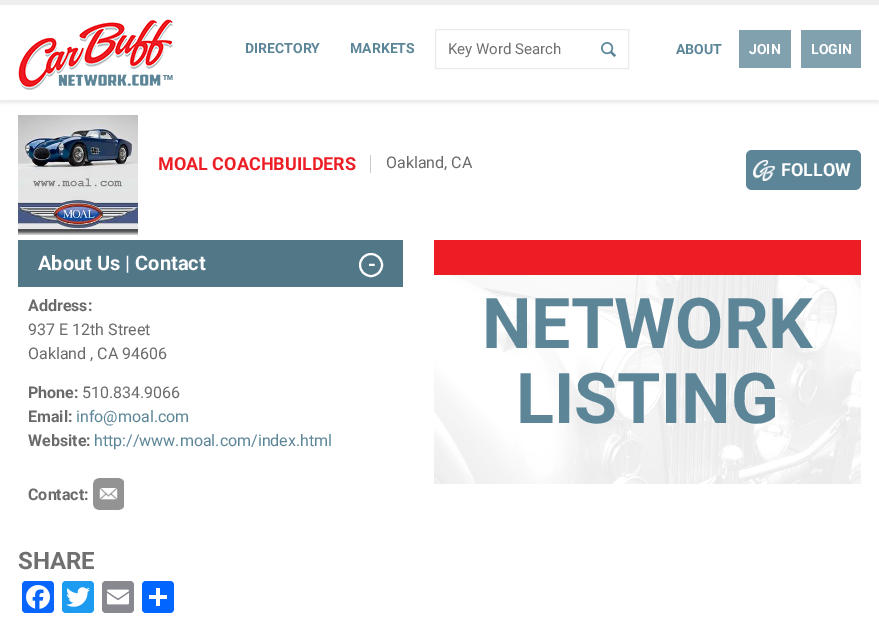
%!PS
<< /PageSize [879 618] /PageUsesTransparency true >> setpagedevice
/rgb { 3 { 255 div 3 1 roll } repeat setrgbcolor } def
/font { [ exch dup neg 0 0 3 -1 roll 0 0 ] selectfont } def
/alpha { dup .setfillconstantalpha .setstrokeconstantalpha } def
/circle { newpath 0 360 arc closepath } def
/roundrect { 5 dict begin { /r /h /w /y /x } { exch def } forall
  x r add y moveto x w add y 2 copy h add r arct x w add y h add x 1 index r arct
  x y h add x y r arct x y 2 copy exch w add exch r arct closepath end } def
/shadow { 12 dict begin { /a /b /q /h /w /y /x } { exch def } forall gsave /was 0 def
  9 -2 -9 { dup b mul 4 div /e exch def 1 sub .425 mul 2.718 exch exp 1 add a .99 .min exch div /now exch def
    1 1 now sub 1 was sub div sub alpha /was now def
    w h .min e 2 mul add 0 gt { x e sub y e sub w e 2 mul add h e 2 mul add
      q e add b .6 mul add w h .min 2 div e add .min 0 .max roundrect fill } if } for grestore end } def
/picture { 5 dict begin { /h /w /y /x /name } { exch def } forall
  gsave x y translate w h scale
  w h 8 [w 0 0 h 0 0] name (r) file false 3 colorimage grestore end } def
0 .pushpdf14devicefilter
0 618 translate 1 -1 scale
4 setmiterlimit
255 255 255 rgb
0 0 879 618 rectfill
0 0 0 rgb
0 3 879 100 0 1.5 0.07 shadow
255 255 255 rgb
0 5 879 95 rectfill
238 238 238 rgb
0 0 879 5 rectfill
(img/1.rgb) 18 19 155 71 picture
235 235 235 rgb
435.5 29.5 193 39 rectstroke
(img/2.rgb) 601 42 15 15 picture
129 161 175 rgb
739 30 52 38 rectfill
801 30 60 38 rectfill
(img/3.rgb) 18 115 120 120 picture
204 204 204 rgb
370 155 1 18 rectfill
92 133 151 rgb
746 150 115 40 6 roundrect fill
(img/4.rgb) 753 160 22 21 picture
82 119 135 rgb
18 240 385 47 rectfill
255 255 255 rgb
2 setlinewidth
371 265 11 circle stroke
(img/5.rgb) 93 478 31 32 picture
8 102 255 rgb
22 581 32 32 4 roundrect fill
(img/6.rgb) 26 585 24 24 picture
29 155 240 rgb
62 581 32 32 4 roundrect fill
(img/7.rgb) 66 587 24 20 picture
136 137 144 rgb
102 581 32 32 4 roundrect fill
(img/8.rgb) 107 589 22 16 picture
1 102 255 rgb
142 581 32 32 4 roundrect fill
[
  [156 588 4 18 255 255 255]
  [149 595 18 4 255 255 255]
  [434 240 427 35 236 29 37]
] { aload pop rgb rectfill } forall
(img/9.rgb) 434 275 427 209 picture
/Roboto-Bold 14 font
92 133 151 rgb
245 53 moveto (DIRECTORY) show
350 53 moveto (MARKETS) show
/Roboto-Regular 15 font
112 112 112 rgb
448 54 moveto (Key Word Search) show
/Roboto-Bold 14 font
92 133 151 rgb
676 54 moveto (ABOUT) show
255 255 255 rgb
749 54 moveto (JOIN) show
811 54 moveto (LOGIN) show
/Roboto-Bold 18 font
236 29 37 rgb
158 170 moveto (MOAL COACHBUILDERS) show
/Roboto-Regular 16 font
106 106 106 rgb
386 168 moveto (Oakland, CA) show
/Roboto-Bold 18 font
255 255 255 rgb
781 176 moveto (FOLLOW) show
/Roboto-Bold 20 font
38 270 moveto (About Us | Contact) show
368 271 moveto (-) show
/Roboto-Bold 16 font
106 106 106 rgb
28 311 moveto (Address:) show
/Roboto-Regular 16 font
28 335 moveto (937 E 12th Street) show
28 359 moveto (Oakland , CA 94606) show
/Roboto-Bold 16 font
28 398 moveto (Phone:) show
/Roboto-Regular 16 font
82 398 moveto (510.834.9066) show
/Roboto-Bold 16 font
28 422 moveto (Email:) show
/Roboto-Regular 16 font
92 133 151 rgb
76 422 moveto (info@moal.com) show
/Roboto-Bold 16 font
106 106 106 rgb
28 446 moveto (Website:) show
/Roboto-Regular 16 font
92 133 151 rgb
94 446 moveto (http://www.moal.com/index.html) show
/Roboto-Bold 16 font
106 106 106 rgb
28 500 moveto (Contact:) show
/Roboto-Bold 24 font
112 112 112 rgb
18 569 moveto (SHARE) show
/Roboto-Bold 70 font
92 133 151 rgb
482 348 moveto (NETWORK) show
516 423 moveto (LISTING) show
.poppdf14devicefilter showpage
